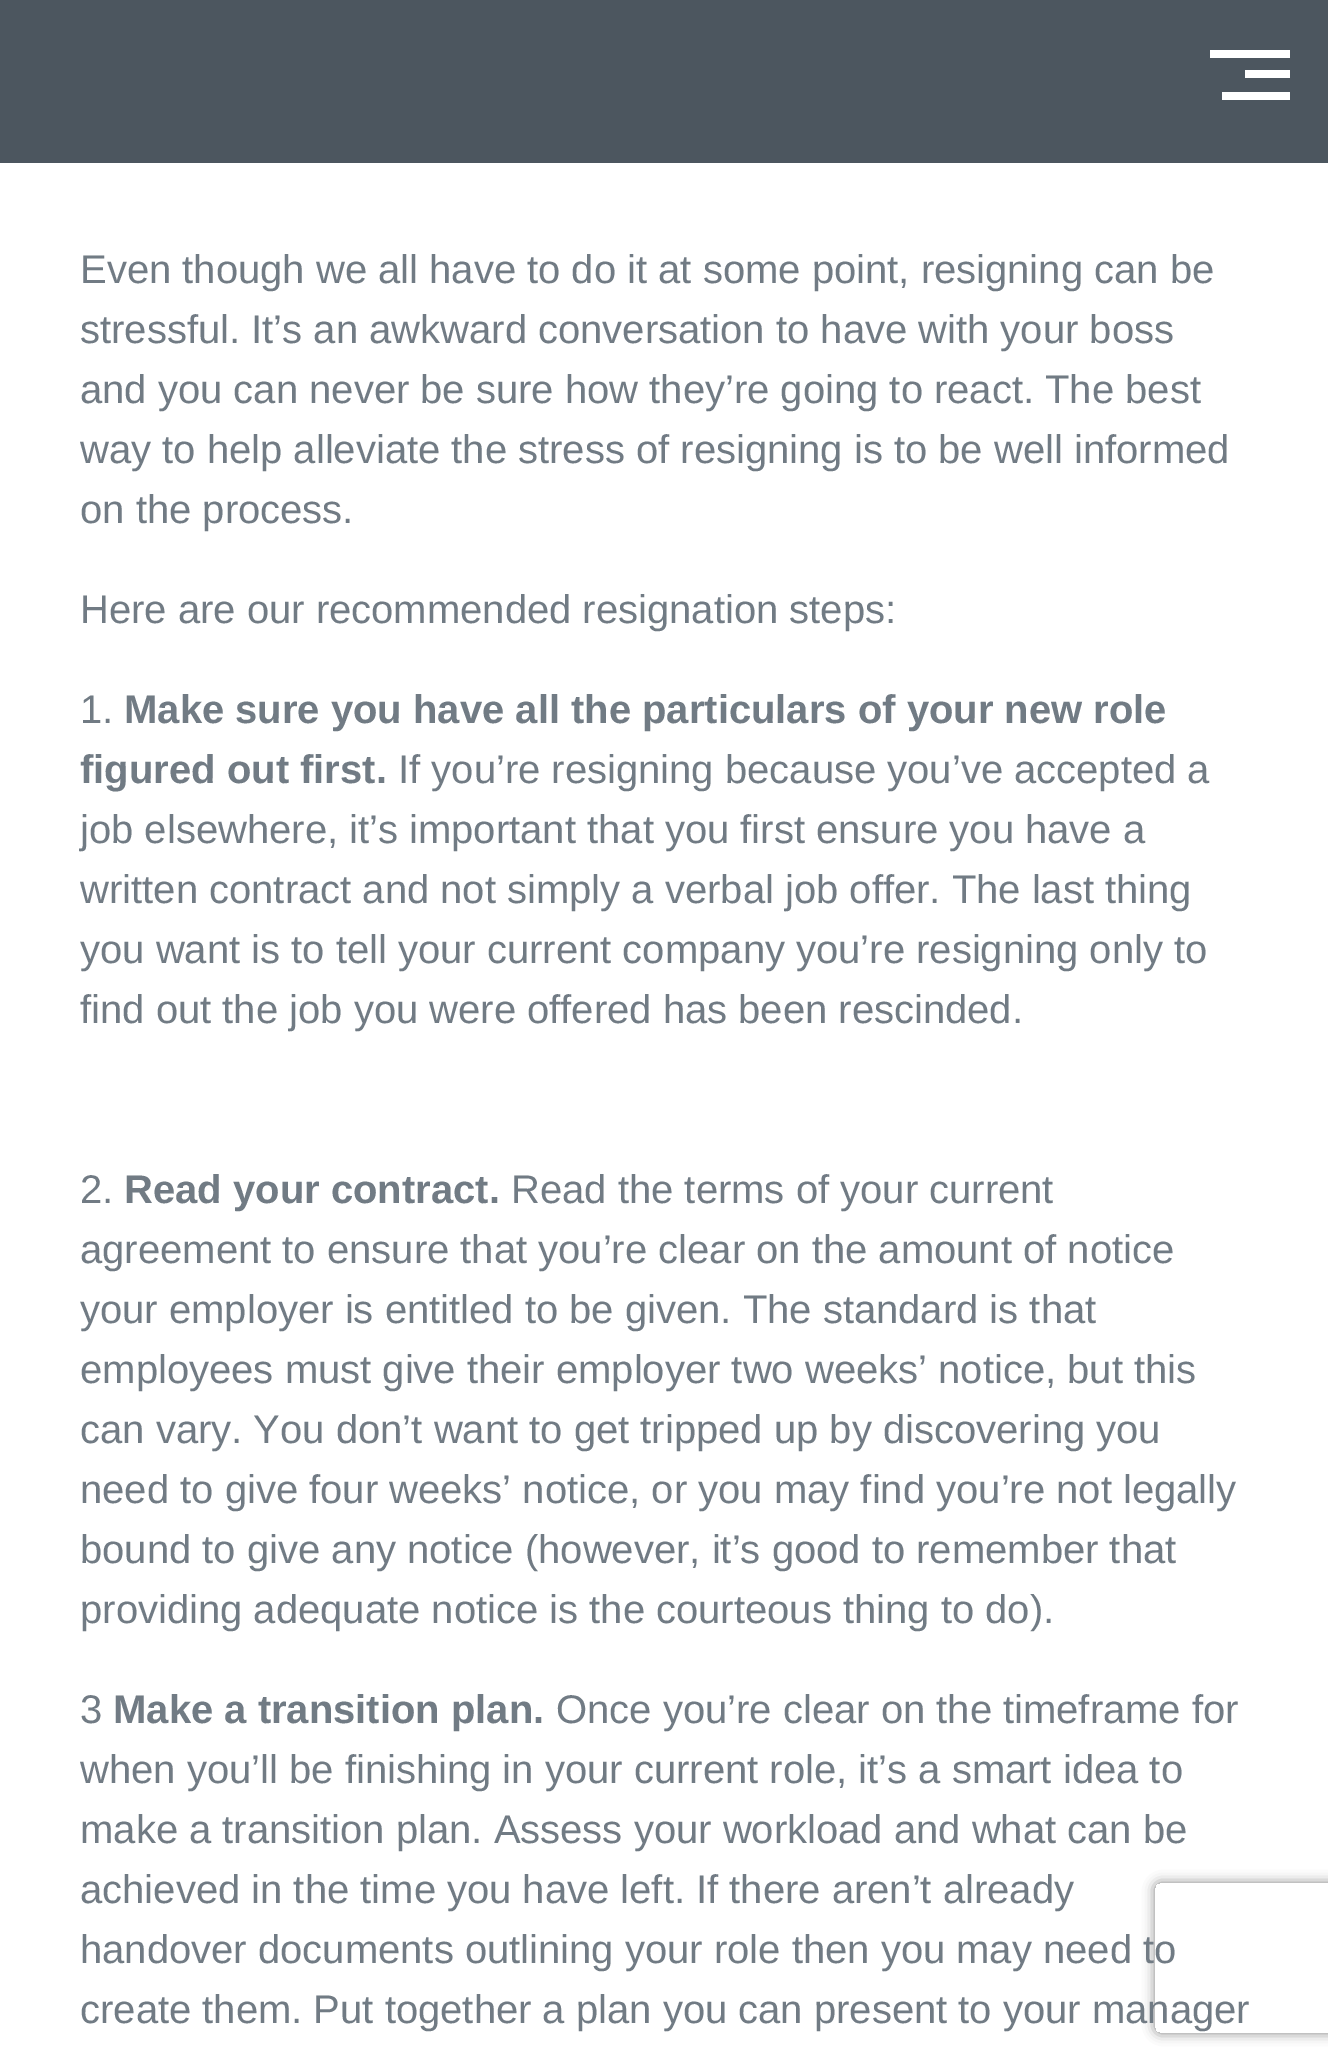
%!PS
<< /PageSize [1328 2066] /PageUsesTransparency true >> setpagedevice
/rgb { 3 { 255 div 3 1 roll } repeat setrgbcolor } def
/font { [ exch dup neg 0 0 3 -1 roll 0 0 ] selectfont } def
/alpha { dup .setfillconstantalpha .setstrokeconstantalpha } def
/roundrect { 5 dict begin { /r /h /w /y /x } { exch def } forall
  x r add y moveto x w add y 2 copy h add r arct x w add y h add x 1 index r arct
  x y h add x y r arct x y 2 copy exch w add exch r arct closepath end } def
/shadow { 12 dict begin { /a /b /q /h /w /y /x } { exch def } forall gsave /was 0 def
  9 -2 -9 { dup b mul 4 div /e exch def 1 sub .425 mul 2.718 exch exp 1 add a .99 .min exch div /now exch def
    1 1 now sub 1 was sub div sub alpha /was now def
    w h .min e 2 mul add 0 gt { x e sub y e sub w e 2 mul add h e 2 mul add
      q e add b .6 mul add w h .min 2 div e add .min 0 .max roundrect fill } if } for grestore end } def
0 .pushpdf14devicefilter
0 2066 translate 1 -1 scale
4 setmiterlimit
255 255 255 rgb
0 0 1328 2066 rectfill
[
  [0 0 1328 163 76 86 95]
  [1210 50 80 8 255 255 255]
  [1245 70 45 8 255 255 255]
  [1222 92 68 8 255 255 255]
] { aload pop rgb rectfill } forall
gsave
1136 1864 moveto 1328 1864 lineto 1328 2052 lineto 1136 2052 lineto closepath 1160 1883 moveto 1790 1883 lineto 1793 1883 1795 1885 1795 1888 curveto 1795 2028 lineto 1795 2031 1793 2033 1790 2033 curveto 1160 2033 lineto 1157 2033 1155 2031 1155 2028 curveto 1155 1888 lineto 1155 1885 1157 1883 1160 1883 curveto closepath eoclip newpath
128 128 128 rgb
1155 1883 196 150 5 6 1 shadow
grestore
/LiberationSans-Regular 40 font
113 123 132 rgb
[
  [(Even though we all have to do it at some point, resigning can be) 80 283]
  [(stressful. It’s an awkward conversation to have with your boss) 80 343]
  [(and you can never be sure how they’re going to react. The best) 80 403]
  [(way to help alleviate the stress of resigning is to be well informed) 80 463]
  [(on the process.) 80 523]
  [(Here are our recommended resignation steps:) 80 623]
  [(1.) 80 723]
] { aload pop moveto show } forall
/LiberationSans-Bold 40 font
124 723 moveto (Make sure you have all the particulars of your new role) show
80 783 moveto (figured out first.) show
/LiberationSans-Regular 40 font
[
  [(If you’re resigning because you’ve accepted a) 398 783]
  [(job elsewhere, it’s important that you first ensure you have a) 80 843]
  [(written contract and not simply a verbal job offer. The last thing) 80 903]
  [(you want is to tell your current company you’re resigning only to) 80 963]
  [(find out the job you were offered has been rescinded.) 80 1023]
  [(2.) 80 1203]
] { aload pop moveto show } forall
/LiberationSans-Bold 40 font
124 1203 moveto (Read your contract.) show
/LiberationSans-Regular 40 font
[
  [(Read the terms of your current) 511 1203]
  [(agreement to ensure that you’re clear on the amount of notice) 80 1263]
  [(your employer is entitled to be given. The standard is that) 80 1323]
  [(employees must give their employer two weeks’ notice, but this) 80 1383]
  [(can vary. You don’t want to get tripped up by discovering you) 80 1443]
  [(need to give four weeks’ notice, or you may find you’re not legally) 80 1503]
  [(bound to give any notice \(however, it’s good to remember that) 80 1563]
  [(providing adequate notice is the courteous thing to do\).) 80 1623]
  [(3) 80 1723]
] { aload pop moveto show } forall
/LiberationSans-Bold 40 font
113 1723 moveto (Make a transition plan.) show
/LiberationSans-Regular 40 font
[
  [(Once you’re clear on the timeframe for) 556 1723]
  [(when you’ll be finishing in your current role, it’s a smart idea to) 80 1783]
  [(make a transition plan. Assess your workload and what can be) 80 1843]
  [(achieved in the time you have left. If there aren’t already) 80 1903]
  [(handover documents outlining your role then you may need to) 80 1963]
  [(create them. Put together a plan you can present to your manager) 80 2023]
] { aload pop moveto show } forall
.poppdf14devicefilter showpage
